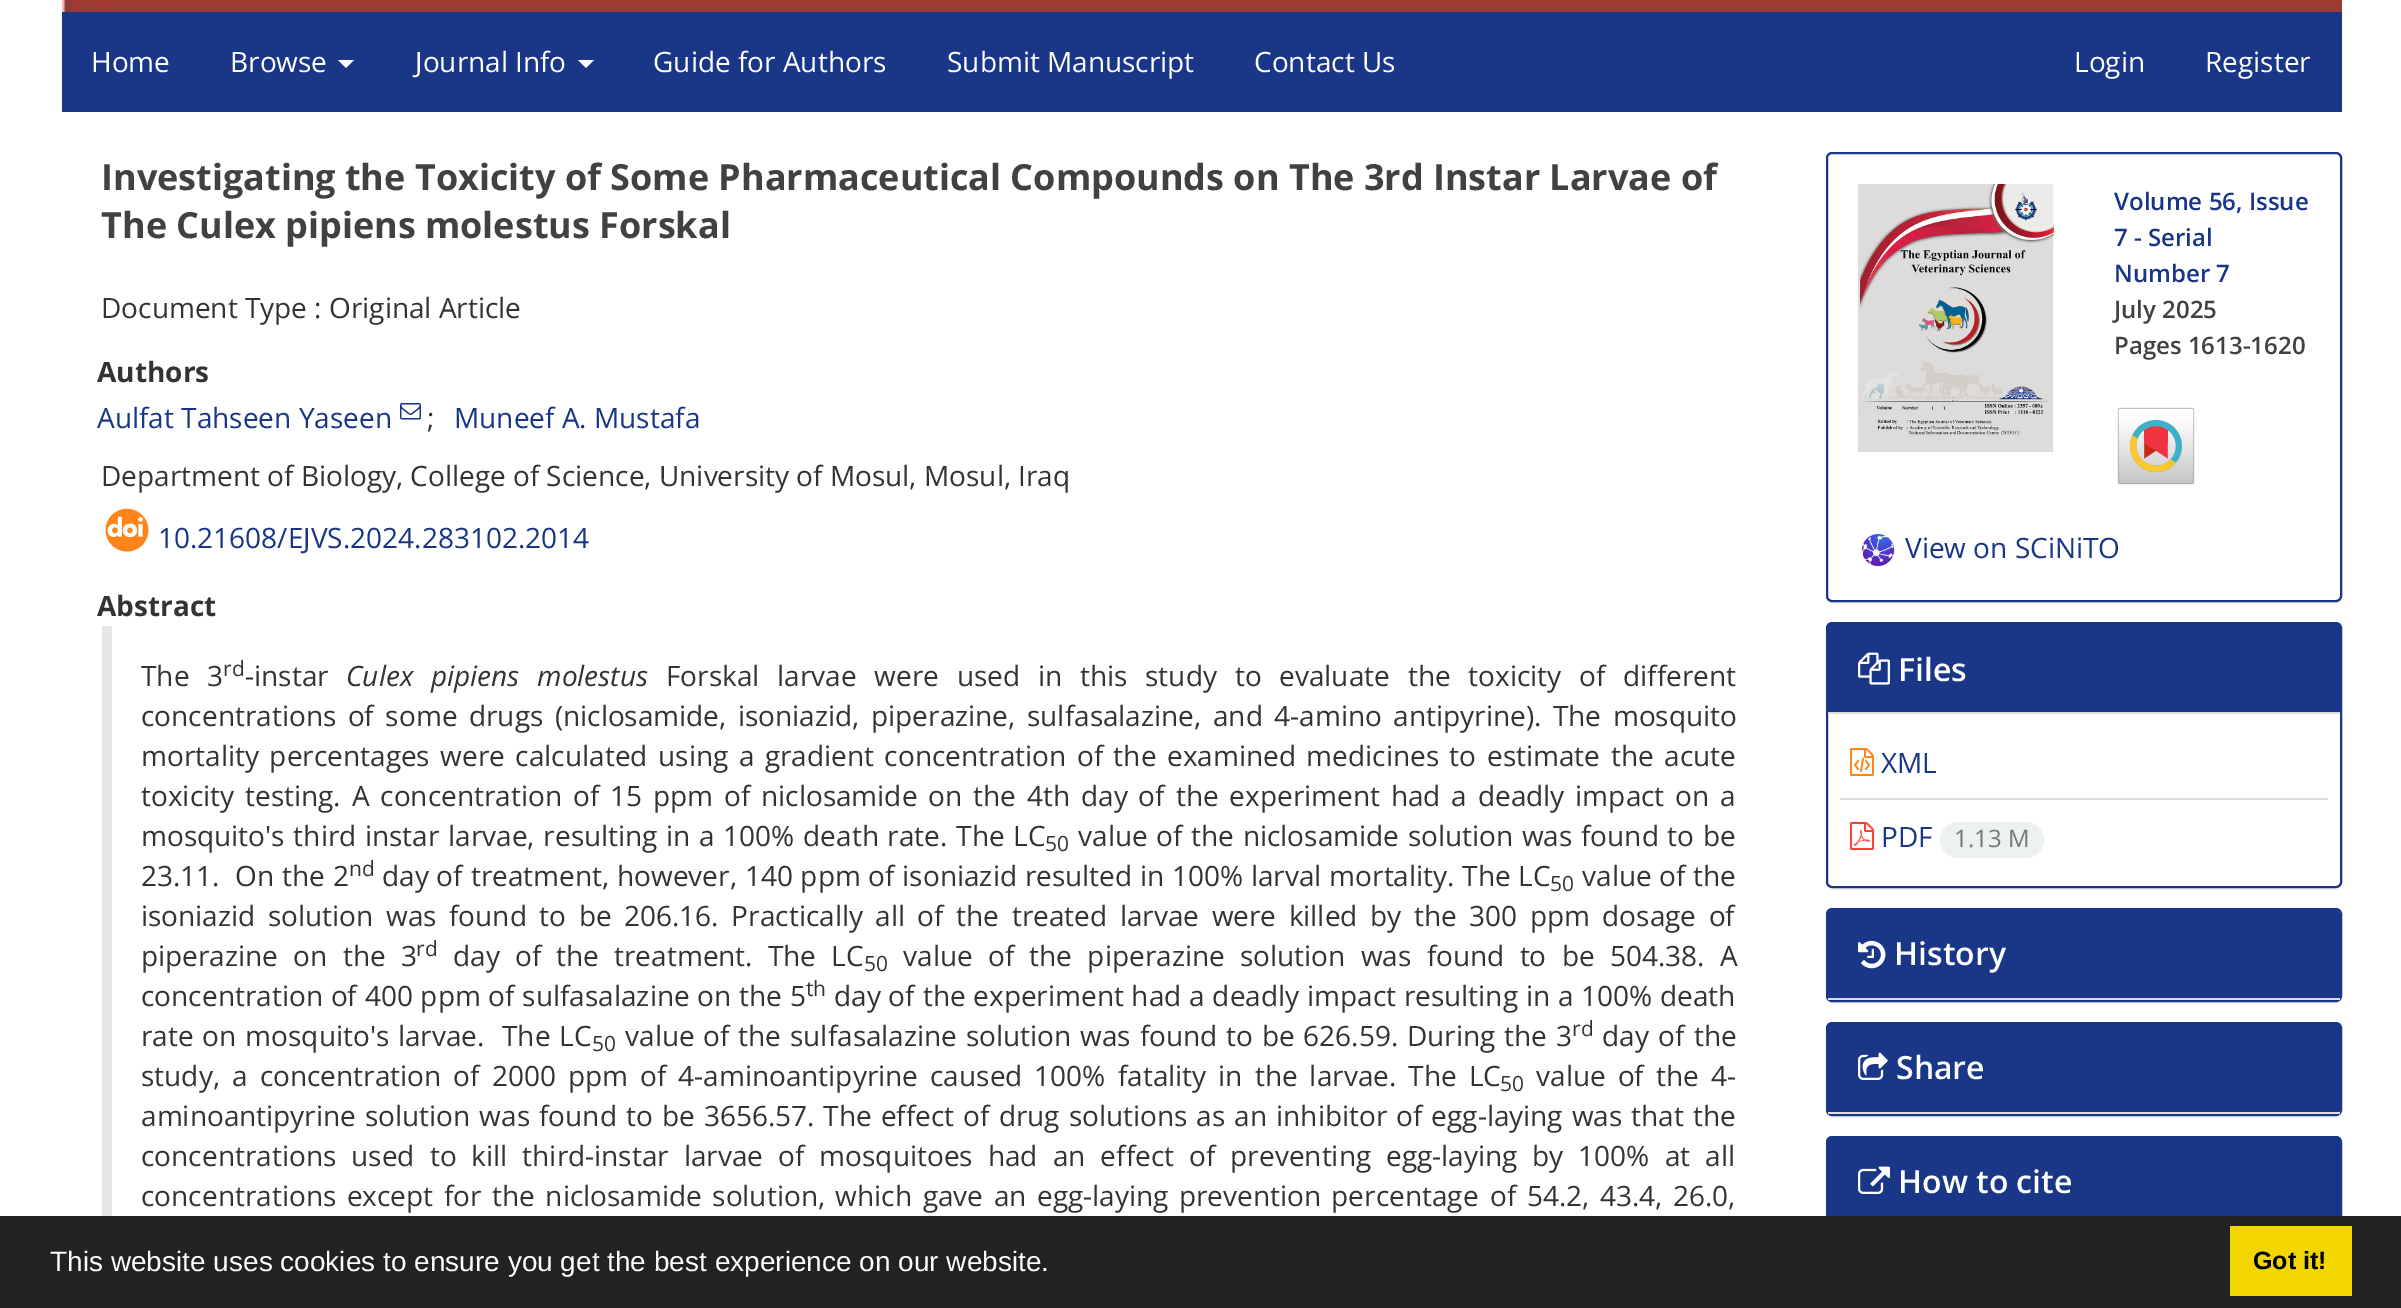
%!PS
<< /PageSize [2401 1308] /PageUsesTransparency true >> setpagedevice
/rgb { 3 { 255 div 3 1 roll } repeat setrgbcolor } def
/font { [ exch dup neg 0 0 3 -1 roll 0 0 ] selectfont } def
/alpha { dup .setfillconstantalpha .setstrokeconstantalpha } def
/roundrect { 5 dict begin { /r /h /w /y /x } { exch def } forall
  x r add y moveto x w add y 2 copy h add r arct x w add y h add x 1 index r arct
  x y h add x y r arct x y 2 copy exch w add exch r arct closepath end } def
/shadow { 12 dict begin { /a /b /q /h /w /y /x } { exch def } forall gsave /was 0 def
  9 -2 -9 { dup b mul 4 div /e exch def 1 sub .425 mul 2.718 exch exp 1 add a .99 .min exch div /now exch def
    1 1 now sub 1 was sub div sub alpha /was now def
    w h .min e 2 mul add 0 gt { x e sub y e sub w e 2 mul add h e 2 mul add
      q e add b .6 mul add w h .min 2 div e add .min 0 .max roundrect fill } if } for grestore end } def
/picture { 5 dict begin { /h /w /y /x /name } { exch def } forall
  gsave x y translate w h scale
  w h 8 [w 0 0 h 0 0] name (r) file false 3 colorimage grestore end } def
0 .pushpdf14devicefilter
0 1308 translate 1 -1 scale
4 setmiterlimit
255 255 255 rgb
0 0 2401 1308 rectfill
(img/1.rgb) 62 0 2280 12 picture
25 54 135 rgb
62 12 2280 100 rectfill
255 255 255 rgb
338 60 moveto 354 60 lineto 346 68 lineto closepath fill
578 60 moveto 594 60 lineto 586 68 lineto closepath fill
(img/2.rgb) 400 403 21 17 picture
(img/3.rgb) 105 508 44 44 picture
230 230 230 rgb
102 626 10 590 rectfill
0 0 0 rgb
1826 154 516 450 6 1 0.05 shadow
255 255 255 rgb
1827 153 514 448 5 roundrect gsave fill grestore
25 54 135 rgb
2 setlinewidth
stroke
(img/4.rgb) 1858 184 196 268 picture
(img/5.rgb) 2117 407 78 78 picture
(img/6.rgb) 1861 533 34 34 picture
0 0 0 rgb
1826 624 516 266 6 1 0.05 shadow
255 255 255 rgb
1827 623 514 264 5 roundrect gsave fill grestore
25 54 135 rgb
stroke
1828 624 512 88 rectfill
221 221 221 rgb
1828 712 512 2 rectfill
(img/7.rgb) 1858 652 32 33 picture
1840 798 488 2 rectfill
(img/8.rgb) 1850 748 24 28 picture
(img/9.rgb) 1850 822 24 28 picture
236 240 241 rgb
1940 822 104 36 18 roundrect fill
0 0 0 rgb
1826 910 516 94 6 1 0.05 shadow
25 54 135 rgb
1827 909 514 92 5 roundrect stroke
1828 910 512 88 rectfill
221 221 221 rgb
1828 998 512 2 rectfill
(img/10.rgb) 1858 940 28 29 picture
0 0 0 rgb
1826 1024 516 94 6 1 0.05 shadow
25 54 135 rgb
1827 1023 514 92 5 roundrect stroke
1828 1024 512 88 rectfill
221 221 221 rgb
1828 1112 512 2 rectfill
(img/11.rgb) 1858 1052 30 28 picture
25 54 135 rgb
1827 1137 514 92 5 roundrect stroke
1828 1138 512 78 rectfill
(img/12.rgb) 1858 1166 32 28 picture
34 34 34 rgb
0 1216 2401 92 rectfill
241 214 0 rgb
2230 1226 122 70 rectfill
/OpenSans-Regular 28 font
255 255 255 rgb
[
  [(Home) 91 72]
  [(Browse) 230 72]
  [(Journal Info) 415 72]
  [(Guide for Authors) 653 72]
  [(Submit Manuscript) 947 72]
  [(Contact Us) 1254 72]
  [(Login) 2074 72]
  [(Register) 2205 72]
] { aload pop moveto show } forall
/OpenSans-Bold 36 font
65 65 65 rgb
101 190 moveto (Investigating the Toxicity of Some Pharmaceutical Compounds on The 3rd Instar Larvae of) show
101 238 moveto (The Culex pipiens molestus Forskal) show
/OpenSans-Regular 28 font
51 51 51 rgb
101 318 moveto (Document Type : Original Article) show
/OpenSans-Bold 28 font
97 382 moveto (Authors) show
/OpenSans-Regular 28 font
24 53 134 rgb
97 428 moveto (Aulfat Tahseen Yaseen) show
51 51 51 rgb
427 428 moveto (;) show
24 53 134 rgb
454 428 moveto (Muneef A. Mustafa) show
51 51 51 rgb
101 486 moveto (Department of Biology, College of Science, University of Mosul, Mosul, Iraq) show
24 53 134 rgb
158 548 moveto (10.21608/EJVS.2024.283102.2014) show
/OpenSans-Bold 28 font
51 51 51 rgb
97 616 moveto (Abstract) show
/OpenSans-Regular 28 font
141 686 moveto 10.5 0 32 (The 3) widthshow
/OpenSans-Regular 21 font
223 676 moveto (rd) show
/OpenSans-Regular 28 font
245 686 moveto (-instar) show
/OpenSans-Italic 28 font
346 686 moveto 10.5 0 32 (Culex pipiens molestus) widthshow
/OpenSans-Regular 28 font
666 686 moveto 10.5 0 32 (Forskal larvae were used in this study to evaluate the toxicity of different) widthshow
141 726 moveto 4.25 0 32 (concentrations of some drugs \(niclosamide, isoniazid, piperazine, sulfasalazine, and 4-amino antipyrine\). The mosquito) widthshow
141 766 moveto 3.25 0 32 (mortality percentages were calculated using a gradient concentration of the examined medicines to estimate the acute) widthshow
141 806 moveto 3.6 0 32 (toxicity testing. A concentration of 15 ppm of niclosamide on the 4th day of the experiment had a deadly impact on a) widthshow
141 846 moveto 1.4 0 32 (mosquito's third instar larvae, resulting in a 100% death rate. The LC) widthshow
/OpenSans-Regular 21 font
1045 851 moveto (50) show
/OpenSans-Regular 28 font
1078 846 moveto 1.4 0 32 (value of the niclosamide solution was found to be) widthshow
141 886 moveto 0.5 0 32 (23.11.  On the 2) widthshow
/OpenSans-Regular 21 font
349 876 moveto (nd) show
/OpenSans-Regular 28 font
382 886 moveto 0.5 0 32 (day of treatment, however, 140 ppm of isoniazid resulted in 100% larval mortality. The LC) widthshow
/OpenSans-Regular 21 font
1550 891 moveto (50) show
/OpenSans-Regular 28 font
1582 886 moveto 0.5 0 32 (value of the) widthshow
141 926 moveto 5.25 0 32 (isoniazid solution was found to be 206.16. Practically all of the treated larvae were killed by the 300 ppm dosage of) widthshow
141 966 moveto 8 0 32 (piperazine on the 3) widthshow
/OpenSans-Regular 21 font
416 956 moveto (rd) show
/OpenSans-Regular 28 font
453 966 moveto 7.75 0 32 (day of the treatment. The LC) widthshow
/OpenSans-Regular 21 font
864 971 moveto (50) show
/OpenSans-Regular 28 font
903 966 moveto 8 0 32 (value of the piperazine solution was found to be 504.38. A) widthshow
141 1006 moveto 0.5 0 32 (concentration of 400 ppm of sulfasalazine on the 5) widthshow
/OpenSans-Regular 21 font
806 996 moveto (th) show
/OpenSans-Regular 28 font
834 1006 moveto 0.5 0 32 (day of the experiment had a deadly impact resulting in a 100% death) widthshow
141 1046 moveto 1.5 0 32 (rate on mosquito's larvae.  The LC) widthshow
/OpenSans-Regular 21 font
592 1051 moveto (50) show
/OpenSans-Regular 28 font
625 1046 moveto 1.5 0 32 (value of the sulfasalazine solution was found to be 626.59. During the 3) widthshow
/OpenSans-Regular 21 font
1572 1036 moveto (rd) show
/OpenSans-Regular 28 font
1602 1046 moveto 2 0 32 (day of the) widthshow
141 1086 moveto 4.75 0 32 (study, a concentration of 2000 ppm of 4-aminoantipyrine caused 100% fatality in the larvae. The LC) widthshow
/OpenSans-Regular 21 font
1500 1091 moveto (50) show
/OpenSans-Regular 28 font
1536 1086 moveto 4.75 0 32 (value of the 4-) widthshow
141 1126 moveto 1.75 0 32 (aminoantipyrine solution was found to be 3656.57. The effect of drug solutions as an inhibitor of egg-laying was that the) widthshow
141 1166 moveto 7.75 0 32 (concentrations used to kill third-instar larvae of mosquitoes had an effect of preventing egg-laying by 100% at all) widthshow
141 1206 moveto 3.25 0 32 (concentrations except for the niclosamide solution, which gave an egg-laying prevention percentage) widthshow
1490 1206 moveto 3.25 0 32 (of 54.2, 43.4, 26.0,) widthshow
/OpenSans-SemiBold 24 font
24 53 134 rgb
[
  [(Volume 56, Issue) 2114 210]
  [(7 - Serial) 2114 246]
  [(Number 7) 2114 282]
] { aload pop moveto show } forall
65 65 65 rgb
2114 318 moveto (July 2025) show
2114 354 moveto (Pages 1613-1620) show
/OpenSans-Regular 28 font
24 53 134 rgb
1905 558 moveto (View on SCiNiTO) show
/OpenSans-SemiBold 32 font
255 255 255 rgb
1898 681 moveto (Files) show
/OpenSans-Regular 28 font
24 53 134 rgb
1881 773 moveto (XML) show
1881 847 moveto (PDF) show
/OpenSans-Regular 24 font
119 119 119 rgb
1954 847 moveto (1.13 M) show
/OpenSans-SemiBold 32 font
255 255 255 rgb
[
  [(History) 1894 965]
  [(Share) 1896 1079]
  [(How to cite) 1898 1193]
] { aload pop moveto show } forall
/LiberationSans-Regular 28 font
50 1271 moveto (This website uses cookies to ensure you get the best experience on our website.) show
/LiberationSans-Bold 25 font
0 0 0 rgb
2253 1269 moveto (Got it!) show
.poppdf14devicefilter showpage
